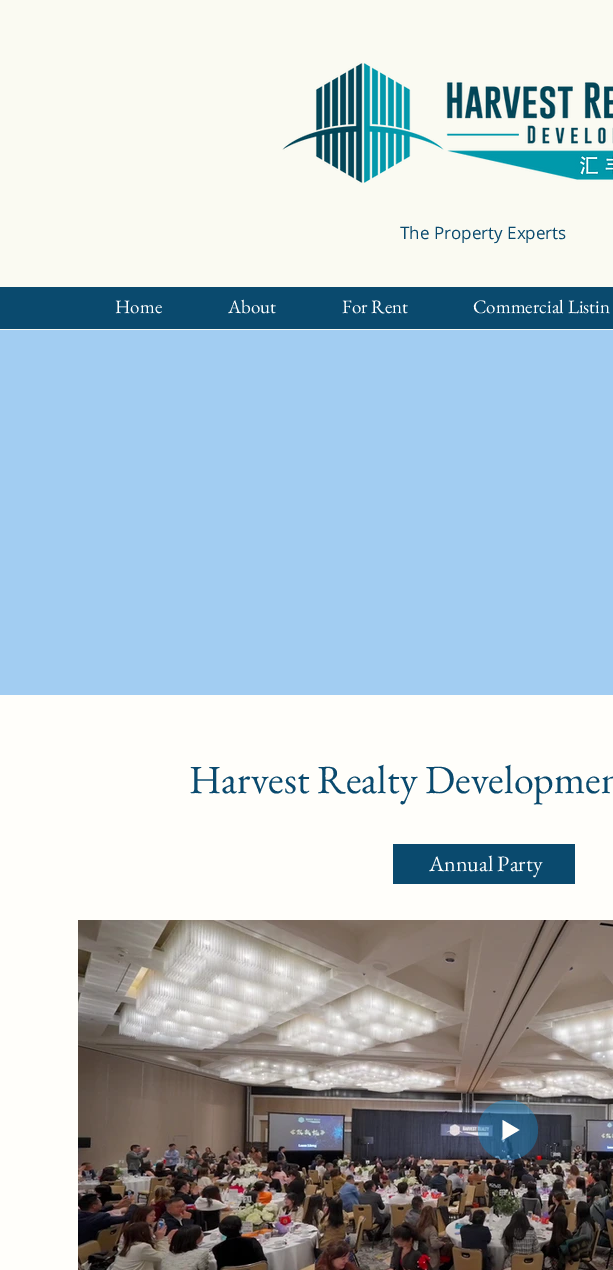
%!PS
<< /PageSize [613 1270] /PageUsesTransparency true >> setpagedevice
/rgb { 3 { 255 div 3 1 roll } repeat setrgbcolor } def
/font { [ exch dup neg 0 0 3 -1 roll 0 0 ] selectfont } def
/alpha { dup .setfillconstantalpha .setstrokeconstantalpha } def
/picture { 5 dict begin { /h /w /y /x /name } { exch def } forall
  gsave x y translate w h scale
  w h 8 [w 0 0 h 0 0] name (r) file false 3 colorimage grestore end } def
0 .pushpdf14devicefilter
0 1270 translate 1 -1 scale
4 setmiterlimit
255 254 250 rgb
0 0 613 1270 rectfill
250 250 242 rgb
0 0 613 330 rectfill
(img/1.rgb) 282 62 331 122 picture
[
  [0 287 613 42 10 74 110]
  [0 330 613 365 162 205 242]
  [393 844 182 40 10 74 110]
] { aload pop rgb rectfill } forall
(img/2.rgb) 78 920 535 350 picture
0.42 alpha
18 133 198 rgb
508 1100 moveto 525 1100 538 1113 538 1130 curveto 538 1147 525 1160 508 1160 curveto 491 1160 478 1147 478 1130 curveto 478 1113 491 1100 508 1100 curveto closepath eofill
1 alpha
255 254 250 rgb
519.5 1130 moveto 502.5 1140 lineto 502.5 1120 lineto closepath fill
/OpenSans-Regular 17 font
10 74 110 rgb
400 239 moveto (The Property Experts) show
/EBGaramond-Regular 19 font
255 255 255 rgb
[
  [(Home) 115 313]
  [(About) 228 313]
  [(For Rent) 342 313]
  [(Commercial Listin) 473 313]
] { aload pop moveto show } forall
/EBGaramond-Regular 40 font
10 74 110 rgb
189 793 moveto (Harvest Realty Developmen) show
/EBGaramond-Regular 22 font
255 255 255 rgb
429 871 moveto (Annual Party) show
.poppdf14devicefilter showpage
